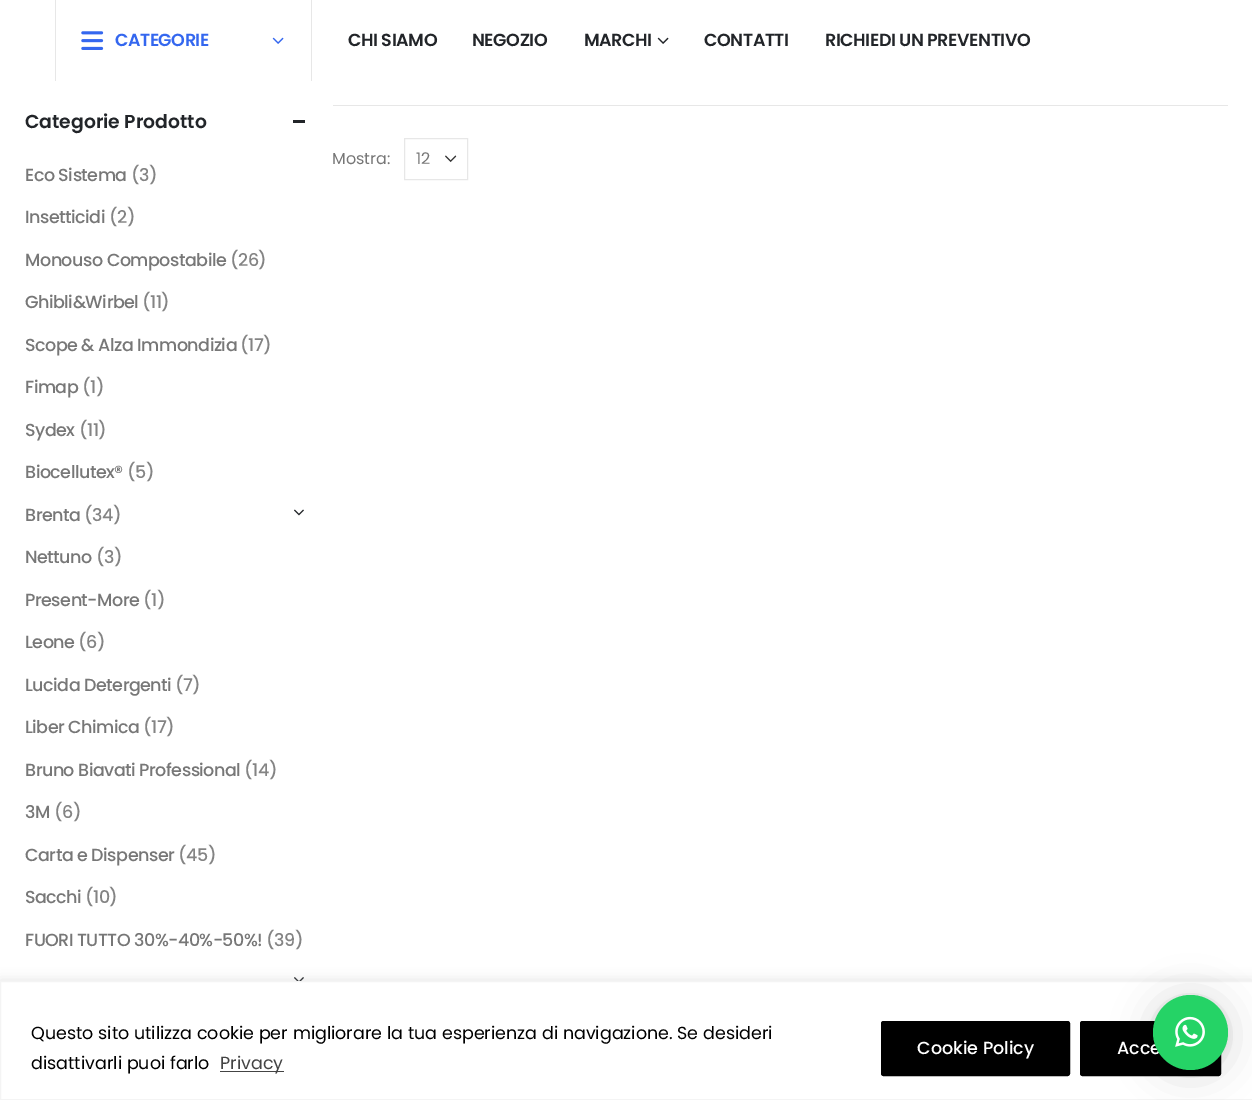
%!PS
<< /PageSize [1252 1100] /PageUsesTransparency true >> setpagedevice
/rgb { 3 { 255 div 3 1 roll } repeat setrgbcolor } def
/font { [ exch dup neg 0 0 3 -1 roll 0 0 ] selectfont } def
/alpha { dup .setfillconstantalpha .setstrokeconstantalpha } def
/circle { newpath 0 360 arc closepath } def
/roundrect { 5 dict begin { /r /h /w /y /x } { exch def } forall
  x r add y moveto x w add y 2 copy h add r arct x w add y h add x 1 index r arct
  x y h add x y r arct x y 2 copy exch w add exch r arct closepath end } def
/shadow { 12 dict begin { /a /b /q /h /w /y /x } { exch def } forall gsave /was 0 def
  9 -2 -9 { dup b mul 4 div /e exch def 1 sub .425 mul 2.718 exch exp 1 add a .99 .min exch div /now exch def
    1 1 now sub 1 was sub div sub alpha /was now def
    w h .min e 2 mul add 0 gt { x e sub y e sub w e 2 mul add h e 2 mul add
      q e add b .6 mul add w h .min 2 div e add .min 0 .max roundrect fill } if } for grestore end } def
/picture { 5 dict begin { /h /w /y /x /name } { exch def } forall
  gsave x y translate w h scale
  w h 8 [w 0 0 h 0 0] name (r) file false 3 colorimage grestore end } def
0 .pushpdf14devicefilter
0 1100 translate 1 -1 scale
4 setmiterlimit
255 255 255 rgb
0 0 1252 1100 rectfill
231 231 231 rgb
311 0 1 81 rectfill
55 0 1 81 rectfill
(img/1.rgb) 81 31 23 19 picture
(img/2.rgb) 272 37 12 7 picture
(img/3.rgb) 657 37 12 7 picture
34 37 41 rgb
293 120 12 3 rectfill
(img/4.rgb) 294 509 10 7 picture
(img/5.rgb) 294 977 10 4 picture
231 231 231 rgb
333 105 895 1 rectfill
(img/6.rgb) 445 155 12 8 picture
404.5 138.5 63 41 rectstroke
172 171 171 rgb
0 980 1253 119 0 6 0.3 shadow
255 255 255 rgb
0.5 981.5 moveto 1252.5 981.5 lineto 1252.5 1099.5 lineto 0.5 1099.5 lineto closepath gsave fill grestore
244 244 244 rgb
stroke
68 68 68 rgb
220 1071 64 1 rectfill
0 0 0 rgb
882.5 1022.5 186 52 1 roundrect gsave fill grestore
3 setlinewidth
stroke
1081.5 1022.5 138 52 1 roundrect gsave fill grestore
stroke
1153 998 75 75 37.5 20 0.16 shadow
1153 996 75 75 37.5 4 0.06 shadow
/Poppins-SemiBold 17.5 font
52 103 239 rgb
115 46 moveto -0.5 0 (CATEGORIE) ashow
34 37 41 rgb
348 46 moveto -0.4 0 (CHI SIAMO) ashow
472 46 moveto -0.4 0 (NEGOZIO) ashow
584 46 moveto -0.4 0 (MARCHI) ashow
704 46 moveto -0.4 0 (CONTATTI) ashow
825 46 moveto -0.4 0 (RICHIEDI UN PREVENTIVO) ashow
/Poppins-SemiBold 18.75 font
25 128 moveto (Categorie Prodotto) show
/Poppins-Medium 17.5 font
119 119 119 rgb
25 181 moveto -0.5 0 (Eco Sistema) ashow
132 132 132 rgb
131 181 moveto -0.5 0 (\(3\)) ashow
119 119 119 rgb
25 223 moveto -0.5 0 (Insetticidi) ashow
132 132 132 rgb
109 223 moveto -0.5 0 (\(2\)) ashow
119 119 119 rgb
25 266 moveto -0.5 0 (Monouso Compostabile) ashow
132 132 132 rgb
230 266 moveto -0.5 0 (\(26\)) ashow
119 119 119 rgb
25 308 moveto -0.5 0 (Ghibli&Wirbel) ashow
132 132 132 rgb
142 308 moveto -0.5 0 (\(11\)) ashow
119 119 119 rgb
25 351 moveto -0.5 0 (Scope & Alza Immondizia) ashow
132 132 132 rgb
240 351 moveto -0.5 0 (\(17\)) ashow
119 119 119 rgb
25 393 moveto -0.5 0 (Fimap) ashow
132 132 132 rgb
82 393 moveto -0.5 0 (\(1\)) ashow
119 119 119 rgb
25 436 moveto -0.5 0 (Sydex) ashow
132 132 132 rgb
79 436 moveto -0.5 0 (\(11\)) ashow
119 119 119 rgb
25 478 moveto -0.5 0 (Biocellutex®) ashow
132 132 132 rgb
127 478 moveto -0.5 0 (\(5\)) ashow
119 119 119 rgb
25 521 moveto -0.5 0 (Brenta) ashow
132 132 132 rgb
84 521 moveto -0.5 0 (\(34\)) ashow
119 119 119 rgb
25 563 moveto -0.5 0 (Nettuno) ashow
132 132 132 rgb
96 563 moveto -0.5 0 (\(3\)) ashow
119 119 119 rgb
25 606 moveto -0.5 0 (Present-More) ashow
132 132 132 rgb
143 606 moveto -0.5 0 (\(1\)) ashow
119 119 119 rgb
25 648 moveto -0.5 0 (Leone) ashow
132 132 132 rgb
78 648 moveto -0.5 0 (\(6\)) ashow
119 119 119 rgb
25 691 moveto -0.5 0 (Lucida Detergenti) ashow
132 132 132 rgb
175 691 moveto -0.5 0 (\(7\)) ashow
119 119 119 rgb
25 733 moveto -0.5 0 (Liber Chimica) ashow
132 132 132 rgb
143 733 moveto -0.5 0 (\(17\)) ashow
119 119 119 rgb
25 776 moveto -0.5 0 (Bruno Biavati Professional) ashow
132 132 132 rgb
244 776 moveto -0.5 0 (\(14\)) ashow
119 119 119 rgb
25 818 moveto -0.5 0 (3M) ashow
132 132 132 rgb
54 818 moveto -0.5 0 (\(6\)) ashow
119 119 119 rgb
25 861 moveto -0.5 0 (Carta e Dispenser) ashow
132 132 132 rgb
178 861 moveto -0.5 0 (\(45\)) ashow
119 119 119 rgb
25 903 moveto -0.5 0 (Sacchi) ashow
132 132 132 rgb
85 903 moveto -0.5 0 (\(10\)) ashow
119 119 119 rgb
25 946 moveto -0.5 0 (FUORI TUTTO 30%-40%-50%!) ashow
132 132 132 rgb
266 946 moveto -0.5 0 (\(39\)) ashow
/Poppins-Regular 16 font
119 119 119 rgb
332 164 moveto (Mostra:) show
416 164 moveto (12) show
/Poppins-Regular 17.5 font
0 0 0 rgb
31 1039 moveto (Questo sito utilizza cookie per migliorare la tua esperienza di navigazione. Se desideri) show
31 1069 moveto (disattivarli puoi farlo) show
68 68 68 rgb
220 1069 moveto (Privacy) show
/Poppins-Medium 17.5 font
255 255 255 rgb
917 1054 moveto (Cookie Policy) show
1117 1054 moveto (Acce) show
37 211 102 rgb
1190.5 1032.5 37.5 circle fill
(img/7.rgb) 1175 1016 30 31 picture
.poppdf14devicefilter showpage
